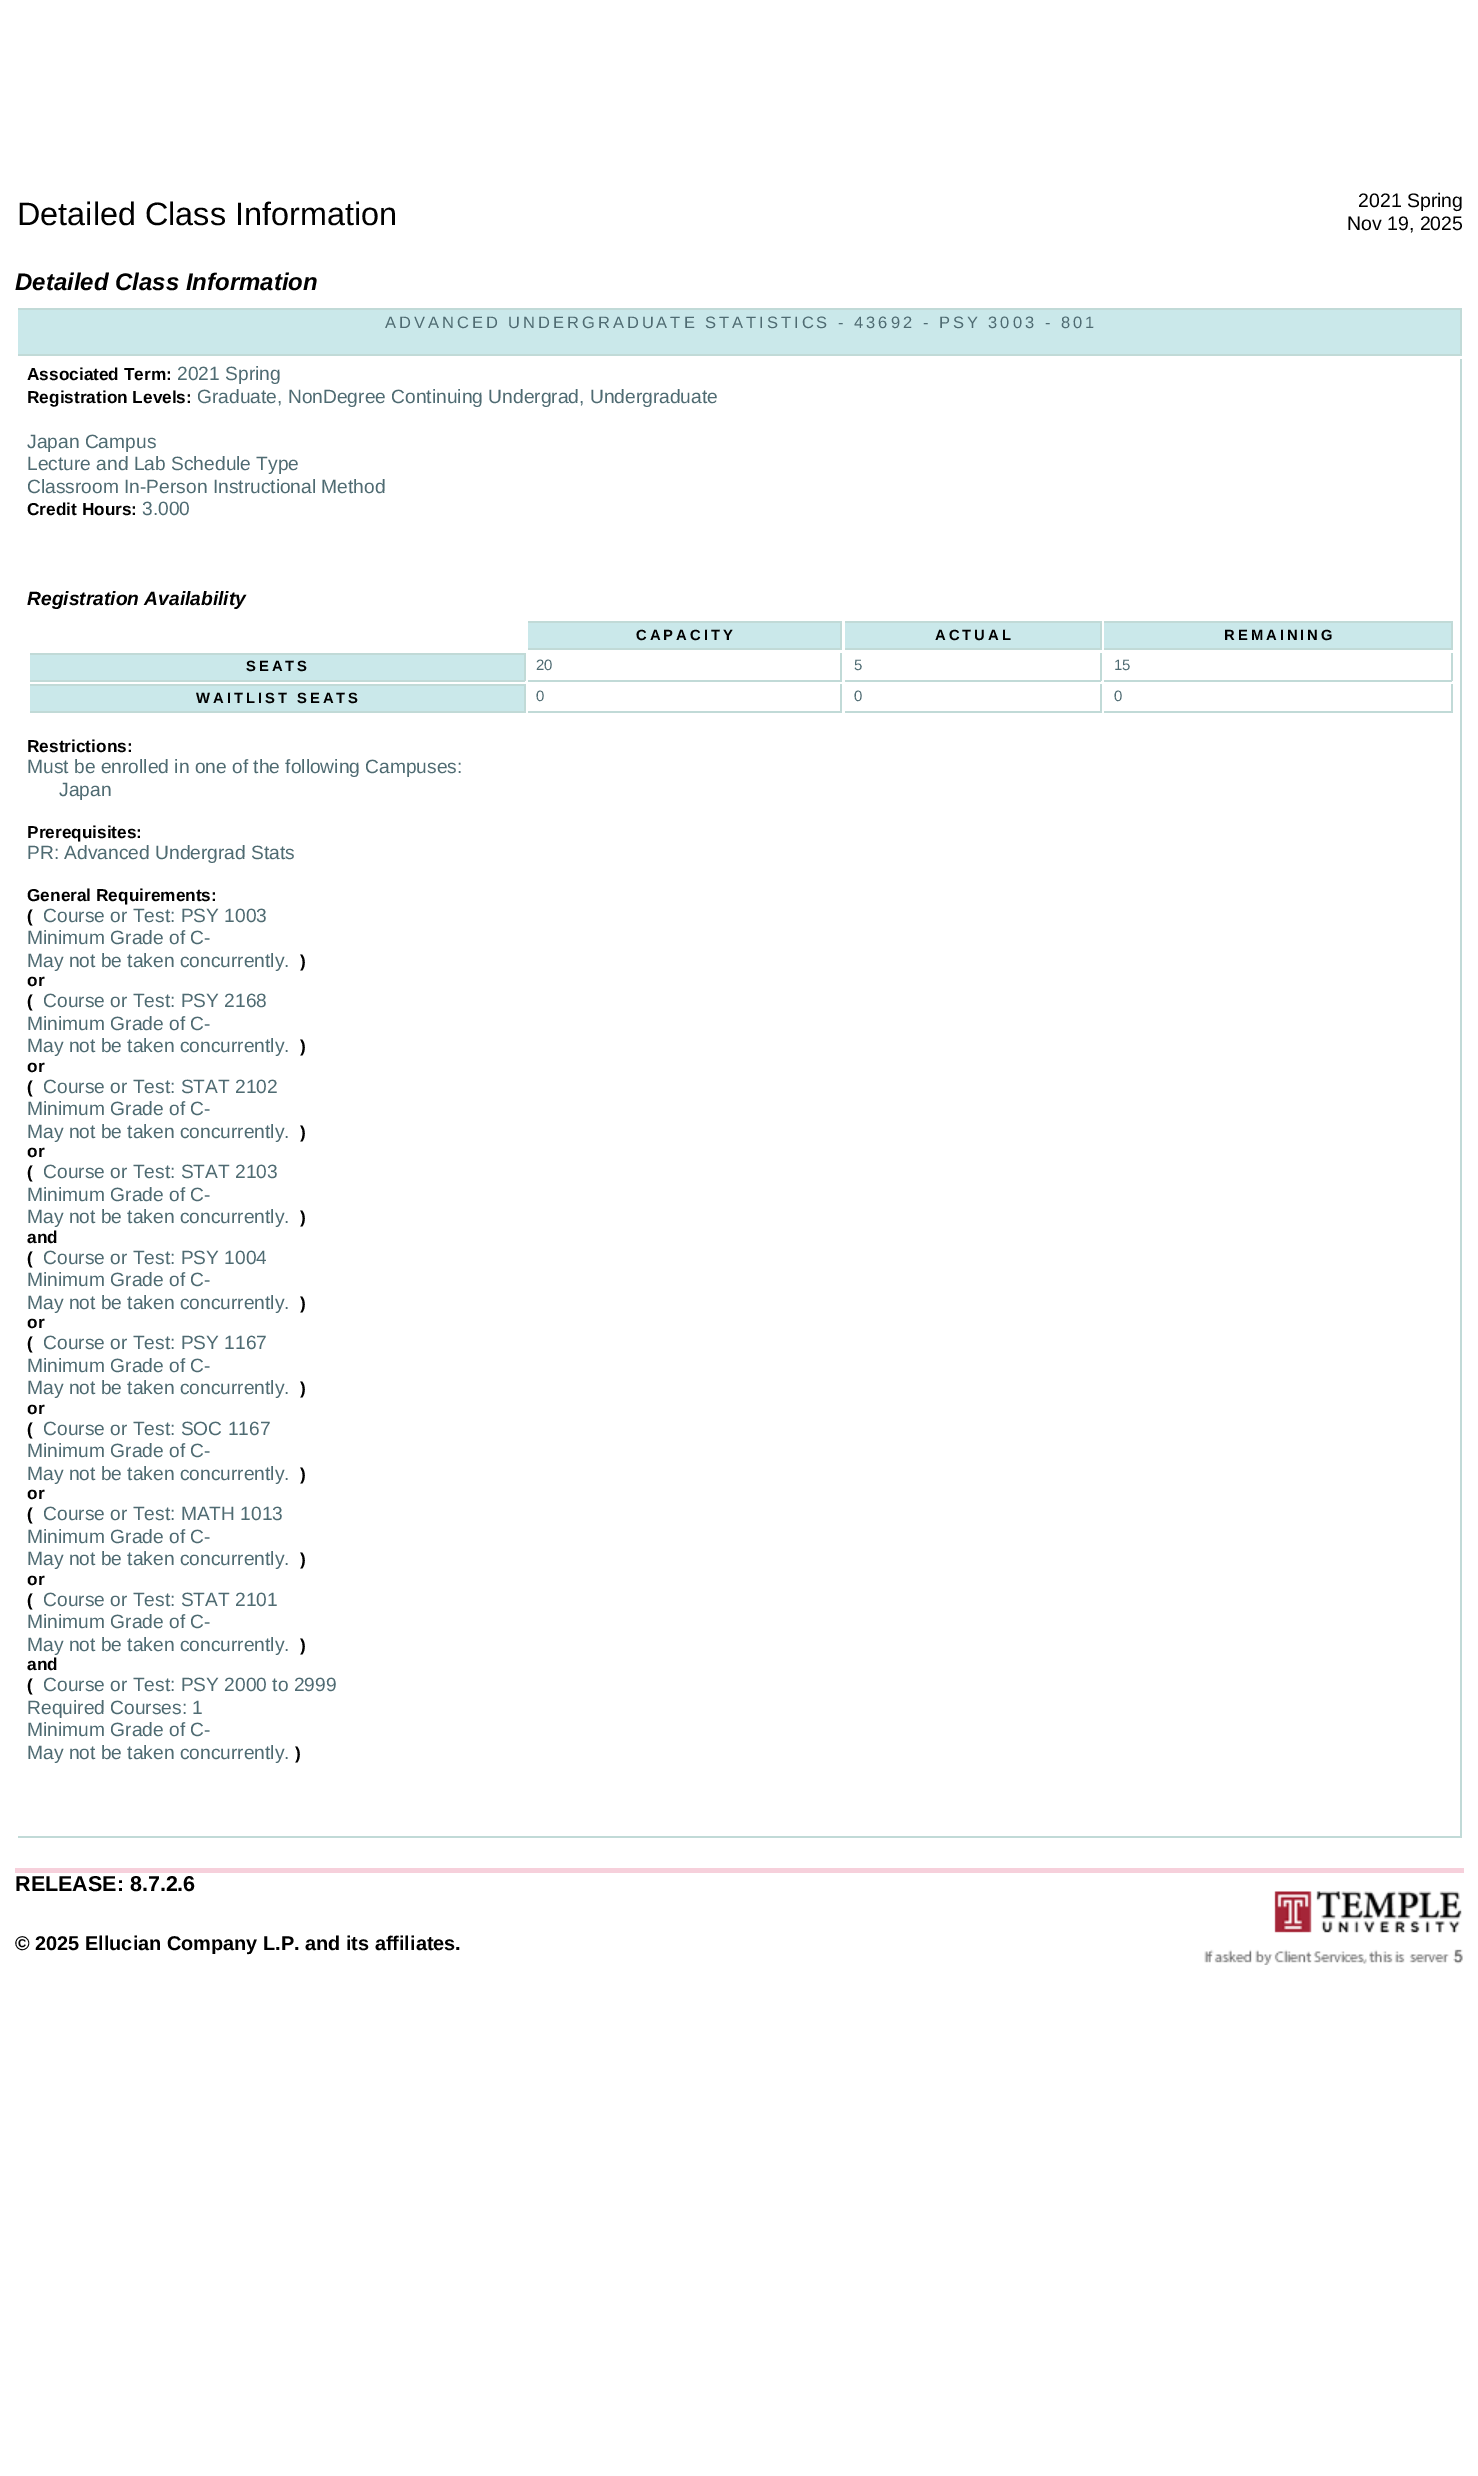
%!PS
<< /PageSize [1478 2476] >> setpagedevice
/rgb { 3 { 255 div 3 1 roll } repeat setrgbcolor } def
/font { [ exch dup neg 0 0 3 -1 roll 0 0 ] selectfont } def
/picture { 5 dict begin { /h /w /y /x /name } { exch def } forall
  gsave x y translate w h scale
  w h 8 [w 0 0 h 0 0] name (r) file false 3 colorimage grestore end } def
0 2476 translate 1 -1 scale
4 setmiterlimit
255 255 255 rgb
0 0 1478 2476 rectfill
[
  [18 310 1442 44 202 232 234]
  [18 308 1443 2 193 218 215]
  [1460 308 2 48 193 218 215]
  [18 354 1443 2 193 218 215]
  [1460 359 2 1479 193 218 215]
  [18 1836 1443 2 193 218 215]
  [528 623 312 25 202 232 234]
  [528 621 314 2 193 218 215]
  [840 621 2 29 193 218 215]
  [528 648 314 2 193 218 215]
  [845 623 255 25 202 232 234]
  [845 621 256 2 193 218 215]
  [1100 621 2 29 193 218 215]
  [845 648 256 2 193 218 215]
  [1104 623 347 25 202 232 234]
  [1104 621 348 2 193 218 215]
  [1451 621 2 29 193 218 215]
  [1104 648 348 2 193 218 215]
  [30 655 494 25 202 232 234]
  [30 653 495 2 193 218 215]
  [524 653 2 28 193 218 215]
  [30 680 495 2 193 218 215]
  [840 653 2 28 193 218 215]
  [528 680 314 2 193 218 215]
  [1100 653 2 28 193 218 215]
  [845 680 256 2 193 218 215]
  [1451 653 2 28 193 218 215]
  [1104 680 348 2 193 218 215]
  [30 686 494 25 202 232 234]
  [30 684 495 2 193 218 215]
  [524 684 2 29 193 218 215]
  [30 711 495 2 193 218 215]
  [840 684 2 29 193 218 215]
  [528 711 314 2 193 218 215]
  [1100 684 2 29 193 218 215]
  [845 711 256 2 193 218 215]
  [1451 684 2 29 193 218 215]
  [1104 711 348 2 193 218 215]
  [15 1868 1449 5 246 208 219]
] { aload pop rgb rectfill } forall
(img/1.rgb) 1204 1891 259 74 picture
/LiberationSans-Regular 32.4 font
0 0 0 rgb
17 225 moveto (Detailed Class Information) show
/LiberationSans-Regular 19.5 font
1358 207 moveto (2021 Spring) show
1347 230 moveto (Nov 19, 2025) show
/LiberationSans-BoldItalic 24 font
15 290 moveto (Detailed Class Information) show
/LiberationSans-Regular 16.5 font
79 107 114 rgb
385 328 moveto 3 0 (ADVANCED UNDERGRADUATE STATISTICS - 43692 - PSY 3003 - 801) ashow
/LiberationSans-Bold 17.25 font
0 0 0 rgb
27 380 moveto (Associated Term:) show
/LiberationSans-Regular 19.2 font
79 107 114 rgb
177 380 moveto (2021 Spring) show
/LiberationSans-Bold 17.25 font
0 0 0 rgb
27 403 moveto (Registration Levels:) show
/LiberationSans-Regular 19.2 font
79 107 114 rgb
[
  [(Graduate, NonDegree Continuing Undergrad, Undergraduate) 197 403]
  [(Japan Campus) 27 448]
  [(Lecture and Lab Schedule Type) 27 470]
  [(Classroom In-Person Instructional Method) 27 493]
] { aload pop moveto show } forall
/LiberationSans-Bold 17.25 font
0 0 0 rgb
27 515 moveto (Credit Hours:) show
/LiberationSans-Regular 19.2 font
79 107 114 rgb
142 515 moveto (3.000) show
/LiberationSans-BoldItalic 19.2 font
0 0 0 rgb
27 605 moveto (Registration Availability) show
/LiberationSans-Bold 14.8 font
636 640 moveto 3 0 (CAPACITY) ashow
935 640 moveto 3 0 (ACTUAL) ashow
1224 640 moveto 3 0 (REMAINING) ashow
246 671 moveto 3 0 (SEATS) ashow
/LiberationSans-Regular 15 font
79 107 114 rgb
[
  [(20) 536 670]
  [(5) 854 670]
  [(15) 1114 670]
] { aload pop moveto show } forall
/LiberationSans-Bold 14.8 font
0 0 0 rgb
196 703 moveto 3 0 (WAITLIST SEATS) ashow
/LiberationSans-Regular 15 font
79 107 114 rgb
[
  [(0) 536 701]
  [(0) 854 701]
  [(0) 1114 701]
] { aload pop moveto show } forall
/LiberationSans-Bold 17.25 font
0 0 0 rgb
27 752 moveto (Restrictions:) show
/LiberationSans-Regular 19.2 font
79 107 114 rgb
27 773 moveto (Must be enrolled in one of the following Campuses:) show
59 796 moveto (Japan) show
/LiberationSans-Bold 17.25 font
0 0 0 rgb
27 838 moveto (Prerequisites:) show
/LiberationSans-Regular 19.2 font
79 107 114 rgb
27 859 moveto (PR: Advanced Undergrad Stats) show
/LiberationSans-Bold 17.25 font
0 0 0 rgb
27 901 moveto (General Requirements:) show
27 922 moveto (\() show
/LiberationSans-Regular 19.2 font
79 107 114 rgb
[
  [(Course or Test: PSY 1003) 43 922]
  [(Minimum Grade of C-) 27 944]
  [(May not be taken concurrently.) 27 967]
] { aload pop moveto show } forall
/LiberationSans-Bold 17.25 font
0 0 0 rgb
[
  [(\)) 300 967]
  [(or) 27 986]
  [(\() 27 1007]
] { aload pop moveto show } forall
/LiberationSans-Regular 19.2 font
79 107 114 rgb
[
  [(Course or Test: PSY 2168) 43 1007]
  [(Minimum Grade of C-) 27 1030]
  [(May not be taken concurrently.) 27 1052]
] { aload pop moveto show } forall
/LiberationSans-Bold 17.25 font
0 0 0 rgb
[
  [(\)) 300 1052]
  [(or) 27 1072]
  [(\() 27 1093]
] { aload pop moveto show } forall
/LiberationSans-Regular 19.2 font
79 107 114 rgb
[
  [(Course or Test: STAT 2102) 43 1093]
  [(Minimum Grade of C-) 27 1115]
  [(May not be taken concurrently.) 27 1138]
] { aload pop moveto show } forall
/LiberationSans-Bold 17.25 font
0 0 0 rgb
[
  [(\)) 300 1138]
  [(or) 27 1157]
  [(\() 27 1178]
] { aload pop moveto show } forall
/LiberationSans-Regular 19.2 font
79 107 114 rgb
[
  [(Course or Test: STAT 2103) 43 1178]
  [(Minimum Grade of C-) 27 1201]
  [(May not be taken concurrently.) 27 1223]
] { aload pop moveto show } forall
/LiberationSans-Bold 17.25 font
0 0 0 rgb
[
  [(\)) 300 1223]
  [(and) 27 1243]
  [(\() 27 1264]
] { aload pop moveto show } forall
/LiberationSans-Regular 19.2 font
79 107 114 rgb
[
  [(Course or Test: PSY 1004) 43 1264]
  [(Minimum Grade of C-) 27 1286]
  [(May not be taken concurrently.) 27 1309]
] { aload pop moveto show } forall
/LiberationSans-Bold 17.25 font
0 0 0 rgb
[
  [(\)) 300 1309]
  [(or) 27 1328]
  [(\() 27 1349]
] { aload pop moveto show } forall
/LiberationSans-Regular 19.2 font
79 107 114 rgb
[
  [(Course or Test: PSY 1167) 43 1349]
  [(Minimum Grade of C-) 27 1372]
  [(May not be taken concurrently.) 27 1394]
] { aload pop moveto show } forall
/LiberationSans-Bold 17.25 font
0 0 0 rgb
[
  [(\)) 300 1394]
  [(or) 27 1414]
  [(\() 27 1435]
] { aload pop moveto show } forall
/LiberationSans-Regular 19.2 font
79 107 114 rgb
[
  [(Course or Test: SOC 1167) 43 1435]
  [(Minimum Grade of C-) 27 1457]
  [(May not be taken concurrently.) 27 1480]
] { aload pop moveto show } forall
/LiberationSans-Bold 17.25 font
0 0 0 rgb
[
  [(\)) 300 1480]
  [(or) 27 1499]
  [(\() 27 1520]
] { aload pop moveto show } forall
/LiberationSans-Regular 19.2 font
79 107 114 rgb
[
  [(Course or Test: MATH 1013) 43 1520]
  [(Minimum Grade of C-) 27 1543]
  [(May not be taken concurrently.) 27 1565]
] { aload pop moveto show } forall
/LiberationSans-Bold 17.25 font
0 0 0 rgb
[
  [(\)) 300 1565]
  [(or) 27 1585]
  [(\() 27 1606]
] { aload pop moveto show } forall
/LiberationSans-Regular 19.2 font
79 107 114 rgb
[
  [(Course or Test: STAT 2101) 43 1606]
  [(Minimum Grade of C-) 27 1628]
  [(May not be taken concurrently.) 27 1651]
] { aload pop moveto show } forall
/LiberationSans-Bold 17.25 font
0 0 0 rgb
[
  [(\)) 300 1651]
  [(and) 27 1670]
  [(\() 27 1691]
] { aload pop moveto show } forall
/LiberationSans-Regular 19.2 font
79 107 114 rgb
[
  [(Course or Test: PSY 2000 to 2999) 43 1691]
  [(Required Courses: 1) 27 1714]
  [(Minimum Grade of C-) 27 1736]
  [(May not be taken concurrently.) 27 1759]
] { aload pop moveto show } forall
/LiberationSans-Bold 17.25 font
0 0 0 rgb
295 1759 moveto (\)) show
/LiberationSans-Bold 21.5 font
15 1891 moveto (RELEASE: 8.7.2.6) show
/LiberationSans-Bold 19.9 font
15 1950 moveto (© 2025 Ellucian Company L.P. and its affiliates.) show
showpage
